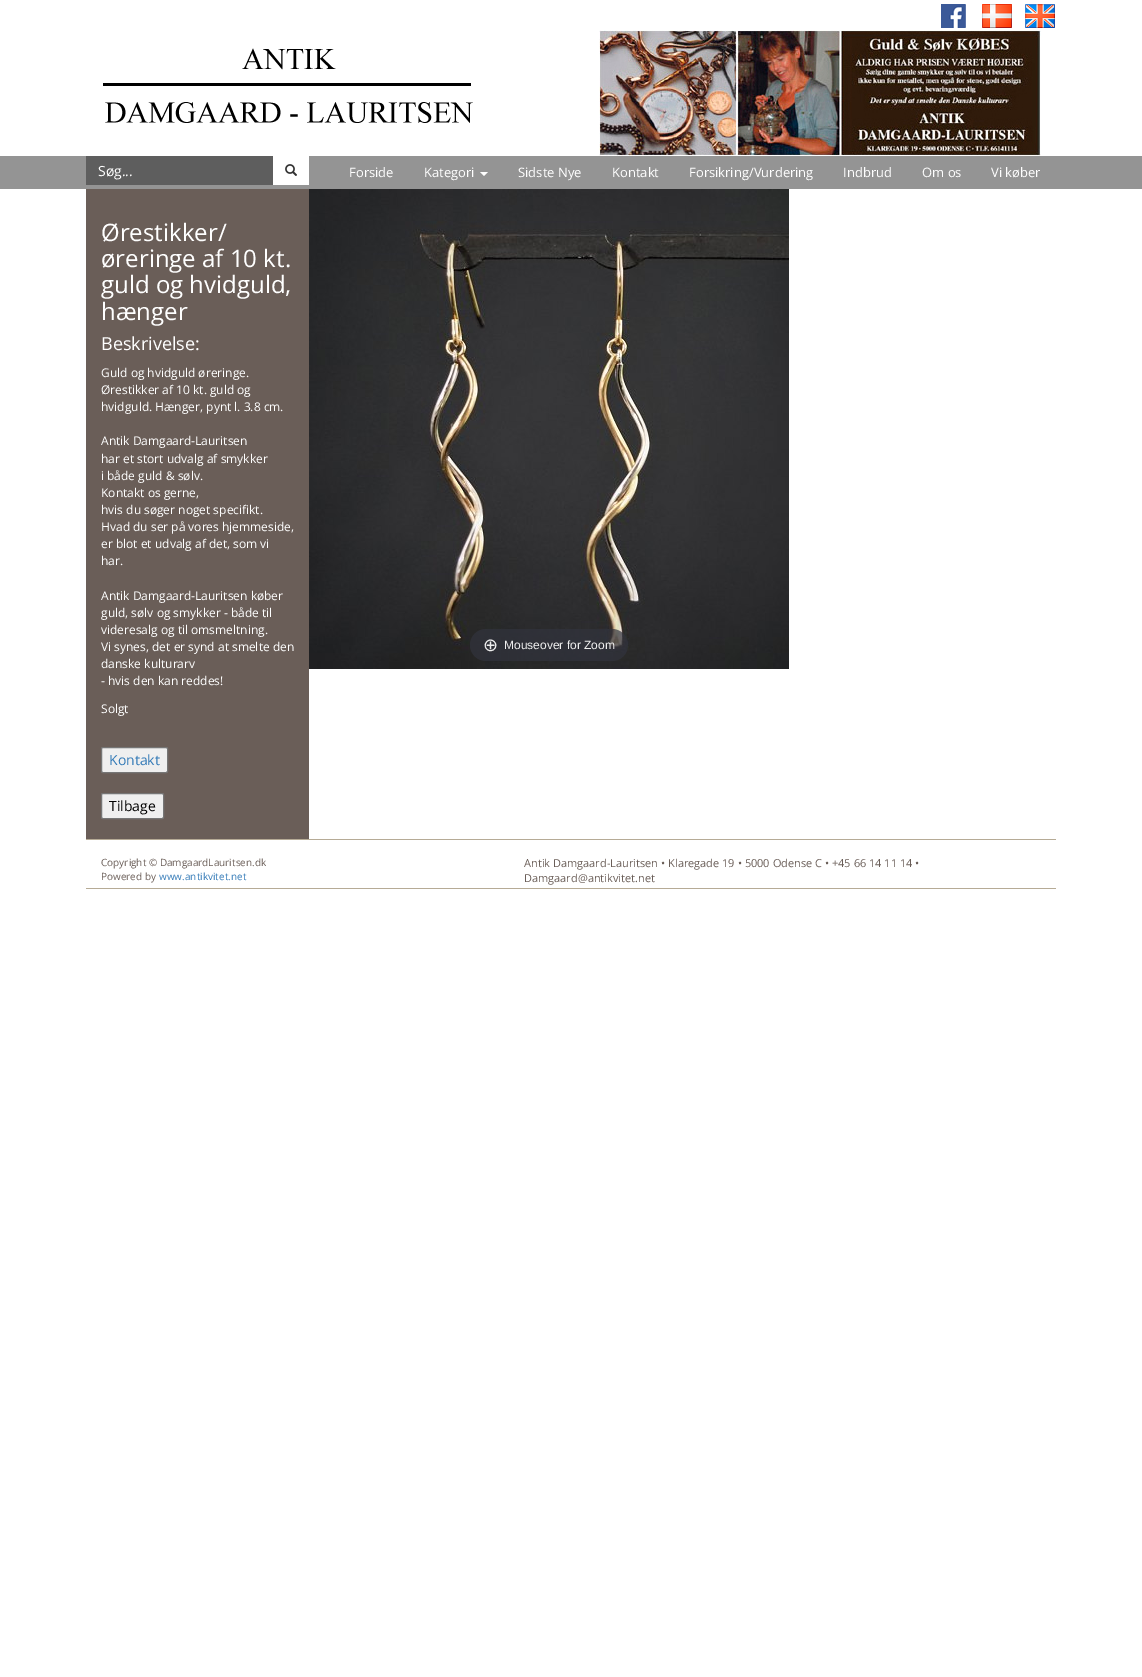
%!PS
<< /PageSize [1142 1677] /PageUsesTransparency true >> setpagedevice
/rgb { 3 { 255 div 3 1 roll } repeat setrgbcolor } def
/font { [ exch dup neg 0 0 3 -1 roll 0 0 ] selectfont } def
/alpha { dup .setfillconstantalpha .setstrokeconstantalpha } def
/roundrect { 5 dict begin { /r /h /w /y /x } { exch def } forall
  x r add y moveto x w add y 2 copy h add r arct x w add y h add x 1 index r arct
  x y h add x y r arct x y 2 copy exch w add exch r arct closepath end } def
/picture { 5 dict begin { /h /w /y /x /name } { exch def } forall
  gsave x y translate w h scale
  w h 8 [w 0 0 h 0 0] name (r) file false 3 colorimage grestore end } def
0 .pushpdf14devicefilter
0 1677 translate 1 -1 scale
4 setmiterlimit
255 255 255 rgb
0 0 1142 1677 rectfill
(img/1.rgb) 941 4 25 24 picture
(img/2.rgb) 982 4 30 24 picture
(img/3.rgb) 1025 4 30 24 picture
(img/4.rgb) 103 48 370 75 picture
(img/5.rgb) 599 30 442 126 picture
[
  [0 156 1142 33 148 148 148]
  [86 156 187 29 94 94 94]
  [273 156 36 29 255 255 255]
] { aload pop rgb rectfill } forall
(img/6.rgb) 285 164 12 12 picture
480 172 moveto 488 172 lineto 484 176 lineto closepath fill
106 94 88 rgb
86 189 223 650 rectfill
239 239 239 rgb
101.5 747.5 66 25 1.5 roundrect gsave fill grestore
118 118 118 rgb
stroke
239 239 239 rgb
101.5 793.5 62 25 1.5 roundrect gsave fill grestore
118 118 118 rgb
stroke
(img/7.rgb) 309 189 480 480 picture
0.7 alpha
49 51 61 rgb
470 629 158 32 16 roundrect fill
1 alpha
182 171 150 rgb
86 839 970 1 rectfill
86 888 970 1 rectfill
/OpenSans-Regular 14 font
255 255 255 rgb
98 176 moveto (Søg...) show
/OpenSans-Regular 13 font
[
  [(Forside) 349 177]
  [(Kategori) 424 177]
  [(Sidste Nye) 518 177]
  [(Kontakt) 612 177]
  [(Forsikring/Vurdering) 689 177]
  [(Indbrud) 843 177]
  [(Om os) 922 177]
  [(Vi køber) 991 177]
] { aload pop moveto show } forall
/OpenSans-Regular 24 font
[
  [(Ørestikker/) 101 241]
  [(øreringe af 10 kt.) 101 267]
  [(guld og hvidguld,) 101 293]
  [(hænger) 101 320]
] { aload pop moveto show } forall
/OpenSans-Regular 18 font
101 350 moveto (Beskrivelse:) show
/OpenSans-Regular 12 font
[
  [(Guld og hvidguld øreringe.) 101 377]
  [(Ørestikker af 10 kt. guld og) 101 394]
  [(hvidguld. Hænger, pynt l. 3.8 cm.) 101 411]
  [(Antik Damgaard-Lauritsen) 101 445]
  [(har et stort udvalg af smykker) 101 463]
  [(i både guld & sølv.) 101 480]
  [(Kontakt os gerne,) 101 497]
  [(hvis du søger noget specifikt.) 101 514]
  [(Hvad du ser på vores hjemmeside,) 101 531]
  [(er blot et udvalg af det, som vi) 101 548]
  [(har.) 101 565]
  [(Antik Damgaard-Lauritsen køber) 101 600]
  [(guld, sølv og smykker - både til) 101 617]
  [(videresalg og til omsmeltning.) 101 634]
  [(Vi synes, det er synd at smelte den) 101 651]
  [(danske kulturarv) 101 668]
  [(- hvis den kan reddes!) 101 685]
  [(Solgt) 101 713]
] { aload pop moveto show } forall
/OpenSans-Regular 14 font
51 122 183 rgb
109 765 moveto (Kontakt) show
0 0 0 rgb
109 811 moveto (Tilbage) show
/DejaVuSans-Regular 18 font
238 238 238 rgb
483 651 moveto (⊕) show
/LiberationSans-Regular 12 font
504 649 moveto (Mouseover for Zoom) show
/OpenSans-Regular 10 font
106 94 88 rgb
101 866 moveto (Copyright © DamgaardLauritsen.dk) show
101 880 moveto (Powered by) show
51 122 183 rgb
159 880 moveto (www.antikvitet.net) show
/OpenSans-Regular 11 font
106 94 88 rgb
524 867 moveto (Antik Damgaard-Lauritsen • Klaregade 19 • 5000 Odense C • +45 66 14 11 14 •) show
524 882 moveto (Damgaard@antikvitet.net) show
.poppdf14devicefilter showpage
